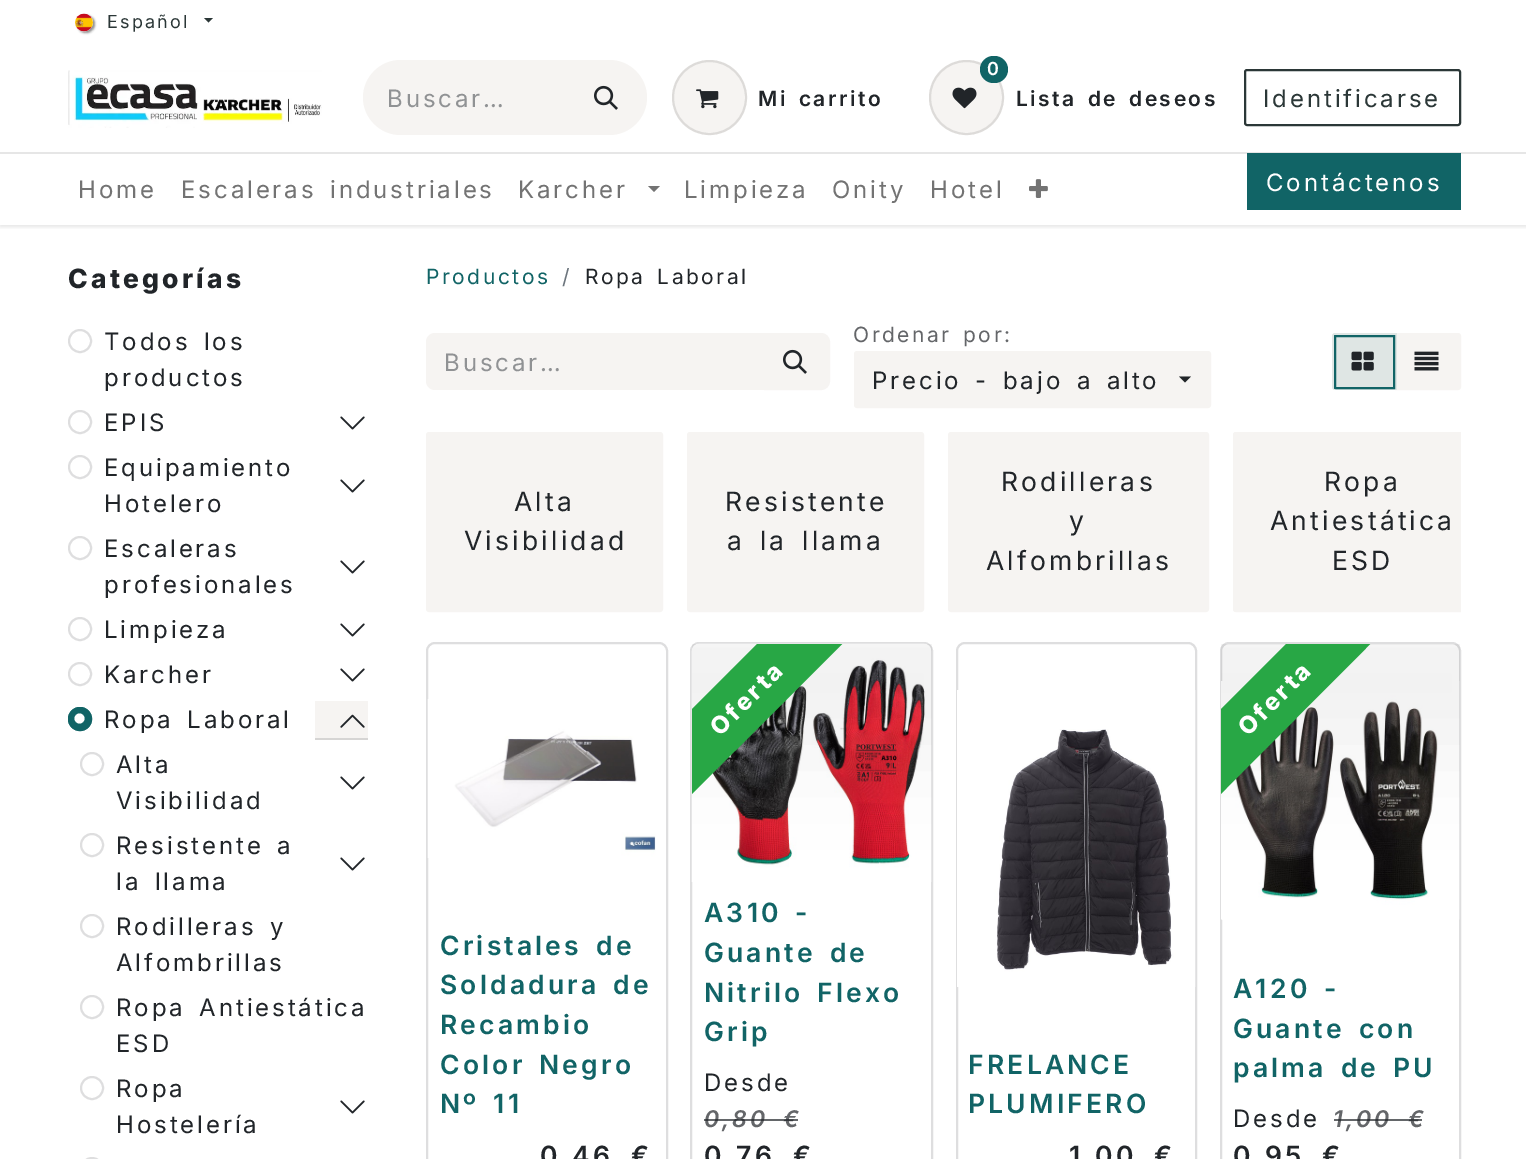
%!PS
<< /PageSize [1526 1159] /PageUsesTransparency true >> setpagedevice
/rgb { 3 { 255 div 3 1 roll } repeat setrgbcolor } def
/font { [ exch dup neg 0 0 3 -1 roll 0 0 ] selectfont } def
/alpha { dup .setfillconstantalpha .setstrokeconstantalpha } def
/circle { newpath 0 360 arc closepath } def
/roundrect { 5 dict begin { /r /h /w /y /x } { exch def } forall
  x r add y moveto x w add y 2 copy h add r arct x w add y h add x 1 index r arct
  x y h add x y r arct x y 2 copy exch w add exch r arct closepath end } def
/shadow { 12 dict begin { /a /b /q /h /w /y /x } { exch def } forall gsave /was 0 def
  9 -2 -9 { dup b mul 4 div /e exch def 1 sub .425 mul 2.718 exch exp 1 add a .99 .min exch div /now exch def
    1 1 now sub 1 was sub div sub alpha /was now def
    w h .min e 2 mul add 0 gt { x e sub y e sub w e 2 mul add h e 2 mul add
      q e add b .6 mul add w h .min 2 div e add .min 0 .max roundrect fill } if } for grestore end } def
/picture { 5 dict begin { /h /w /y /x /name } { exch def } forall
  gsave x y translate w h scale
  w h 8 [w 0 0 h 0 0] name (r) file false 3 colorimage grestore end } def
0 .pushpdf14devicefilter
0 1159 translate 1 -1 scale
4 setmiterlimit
255 255 255 rgb
0 0 1526 1159 rectfill
gsave
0 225 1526 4 rectclip
0 0 0 rgb
0 2 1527 225 0 2 0.1 shadow
grestore
0 0 0 rgb
77 15 18 18 9 1 0.43 shadow
(img/1.rgb) 75 13 18 19 picture
43 55 55 rgb
204 18 moveto 213 18 lineto 208.5 22.5 lineto closepath fill
(img/2.rgb) 68 70 254 58 picture
246 244 242 rgb
400.5 60 moveto 570 60 lineto 570 135 lineto 400.5 135 lineto 380 135 363 118 363 97.5 curveto 363 77 380 60 400.5 60 curveto closepath fill
569 60 moveto 609.5 60 lineto 630 60 647 77 647 97.5 curveto 647 118 630 135 609.5 135 curveto 569 135 lineto closepath fill
(img/3.rgb) 594 85 24 25 picture
709.5 97.5 37.5 circle fill
0.1 alpha
0 0 0 rgb
2 setlinewidth
709.5 97.5 36.5 circle stroke
1 alpha
(img/4.rgb) 696 89 23 20 picture
246 244 242 rgb
966.5 97.5 37.5 circle fill
0.1 alpha
0 0 0 rgb
966.5 97.5 36.5 circle stroke
1 alpha
17 100 102 rgb
980 56 28 27 13.5 roundrect fill
(img/5.rgb) 952 87 25 22 picture
43 55 55 rgb
1245 70 215 55 2 roundrect stroke
230 230 230 rgb
0 152 1526 2 rectfill
115 115 115 rgb
648 186 moveto 660 186 lineto 654 192 lineto closepath fill
(img/6.rgb) 1029 179 19 19 picture
17 100 102 rgb
1247 153 214 57 rectfill
222 222 223 rgb
80 341 11 circle stroke
80 422 11 circle stroke
(img/7.rgb) 340 416 25 14 picture
80 467 11 circle stroke
(img/7.rgb) 340 479 25 14 picture
80 548 11 circle stroke
(img/7.rgb) 340 560 25 14 picture
80 629 11 circle stroke
(img/7.rgb) 340 623 25 14 picture
80 674 11 circle stroke
(img/7.rgb) 340 668 25 14 picture
17 100 102 rgb
80 719 12 circle fill
255 255 255 rgb
79.5 718.5 5 circle fill
17 100 102 rgb
80 719 11 circle stroke
246 244 242 rgb
315 701 53 37 rectfill
214 213 212 rgb
315 738 53 2 rectfill
(img/8.rgb) 340 714 25 14 picture
222 222 223 rgb
92 764 11 circle stroke
(img/7.rgb) 340 776 25 14 picture
92 845 11 circle stroke
(img/7.rgb) 340 857 25 14 picture
92 926 11 circle stroke
92 1007 11 circle stroke
92 1088 11 circle stroke
(img/7.rgb) 340 1100 25 14 picture
81 1158 22 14 11 roundrect stroke
246 244 242 rgb
435 333 moveto 765 333 lineto 765 390 lineto 435 390 lineto 430 390 426 386 426 381 curveto 426 342 lineto 426 337 430 333 435 333 curveto closepath fill
765 334 moveto 821 334 lineto 825.5 334 829 337.5 829 342 curveto 829 381 lineto 829 385.5 825.5 389 821 389 curveto 765 389 lineto closepath gsave fill grestore
stroke
(img/3.rgb) 783 349 24 25 picture
855 352 355 55 2 roundrect gsave fill grestore
stroke
33 37 41 rgb
1179 376.5 moveto 1191 376.5 lineto 1185 382.5 lineto closepath fill
246 244 242 rgb
1396 334 moveto 1458 334 lineto 1459 334 1460 335 1460 336 curveto 1460 387 lineto 1460 388 1459 389 1458 389 curveto 1396 389 lineto closepath gsave fill grestore
stroke
223 230 228 rgb
1335 333 moveto 1397 333 lineto 1397 390 lineto 1335 390 lineto 1333.5 390 1332 388.5 1332 387 curveto 1332 336 lineto 1332 334.5 1333.5 333 1335 333 curveto closepath fill
17 100 102 rgb
1335.5 336 moveto 1394 336 lineto 1394 388 lineto 1335.5 388 lineto 1335 388 1335 388 1335 387.5 curveto 1335 336.5 lineto 1335 336 1335 336 1335.5 336 curveto closepath stroke
(img/9.rgb) 1351 351 23 20 picture
(img/10.rgb) 1414 351 25 20 picture
246 244 242 rgb
427 433 235 178 2 roundrect gsave fill grestore
stroke
688 433 235 178 2 roundrect gsave fill grestore
stroke
949 433 259 178 2 roundrect gsave fill grestore
stroke
1236 432 moveto 1461 432 lineto 1461 612 lineto 1236 612 lineto 1234.5 612 1233 610.5 1233 609 curveto 1233 435 lineto 1233 433.5 1234.5 432 1236 432 curveto closepath fill
gsave
426 432 1035 186 rectclip
1234 433 258 178 2 roundrect stroke
grestore
222 222 223 rgb
427 643 240 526 8 roundrect stroke
(img/11.rgb) 427 699 229 159 picture
691 643 241 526 8 roundrect stroke
(img/12.rgb) 691 643 241 239 picture
gsave
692 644 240 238 rectclip
0 0 0 rgb
504 608 485 150 0 52.5 0.05 shadow
grestore
gsave
692 644 240 238 rectclip
40 167 69 rgb
586 815 moveto 864 537 lineto 907 579 lineto 628 858 lineto closepath fill
grestore
957 643 239 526 8 roundrect stroke
(img/13.rgb) 957 690 239 297 picture
1221 643 239 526 8 roundrect stroke
(img/14.rgb) 1221 681 239 239 picture
gsave
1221 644 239 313 rectclip
0 0 0 rgb
1034 608 483 150 0 52.5 0.05 shadow
grestore
gsave
1221 644 239 313 rectclip
40 167 69 rgb
1115 815 moveto 1393 537 lineto 1435 579 lineto 1157 858 lineto closepath fill
grestore
/Inter-Regular 18 font
43 55 55 rgb
107 28 moveto 2.25 0 (Español) ashow
/Inter-Regular 24 font
144 146 148 rgb
387 107 moveto 2.9 0 (Buscar…) ashow
/Inter-SemiBold 21 font
33 37 41 rgb
758 106 moveto 3 0 32 2.5 0 (Mi carrito) awidthshow
/Inter-SemiBold 18 font
255 255 255 rgb
987 75 moveto 2.25 0 (0) ashow
/Inter-SemiBold 21 font
33 37 41 rgb
1016 106 moveto 3 0 32 2.5 0 (Lista de deseos) awidthshow
/Inter-Regular 24 font
43 55 55 rgb
1263 107 moveto 2.9 0 (Identificarse) ashow
115 115 115 rgb
78 198 moveto 2.9 0 (Home) ashow
181 198 moveto 4 0 32 2.9 0 (Escaleras industriales) awidthshow
518 198 moveto 2.9 0 (Karcher) ashow
684 198 moveto 2.9 0 (Limpieza) ashow
832 198 moveto 2.9 0 (Onity) ashow
930 198 moveto 2.9 0 (Hotel) ashow
255 255 255 rgb
1266 191 moveto 2.9 0 (Contáctenos) ashow
/Inter-ExtraBold 26.5 font
33 37 41 rgb
68 288 moveto 3.2 0 (Categorías) ashow
/Inter-Regular 24 font
104 350 moveto 4 0 32 2.9 0 (Todos los) awidthshow
104 386 moveto 2.9 0 (productos) ashow
104 431 moveto 2.9 0 (EPIS) ashow
104 476 moveto 2.9 0 (Equipamiento) ashow
104 512 moveto 2.9 0 (Hotelero) ashow
104 557 moveto 2.9 0 (Escaleras) ashow
104 593 moveto 2.9 0 (profesionales) ashow
104 638 moveto 2.9 0 (Limpieza) ashow
104 683 moveto 2.9 0 (Karcher) ashow
104 728 moveto 4 0 32 2.9 0 (Ropa Laboral) awidthshow
116 773 moveto 2.9 0 (Alta) ashow
116 809 moveto 2.9 0 (Visibilidad) ashow
116 854 moveto 4 0 32 2.9 0 (Resistente a) awidthshow
116 890 moveto 4 0 32 2.9 0 (la llama) awidthshow
116 935 moveto 4 0 32 2.9 0 (Rodilleras y) awidthshow
116 971 moveto 2.9 0 (Alfombrillas) ashow
116 1016 moveto 4 0 32 2.9 0 (Ropa Antiestática) awidthshow
116 1052 moveto 2.9 0 (ESD) ashow
116 1097 moveto 2.9 0 (Ropa) ashow
116 1133 moveto 2.9 0 (Hostelería) ashow
/Inter-Regular 21 font
17 100 102 rgb
426 284 moveto 2.5 0 (Productos) ashow
108 117 125 rgb
562 284 moveto 2.5 0 (/) ashow
33 37 41 rgb
585 284 moveto 3 0 32 2.5 0 (Ropa Laboral) awidthshow
/Inter-Regular 24 font
144 146 148 rgb
444 371 moveto 2.9 0 (Buscar…) ashow
/Inter-Regular 21 font
100 102 105 rgb
853 342 moveto 3 0 32 2.5 0 (Ordenar por:) awidthshow
/Inter-Regular 24 font
33 37 41 rgb
872 389 moveto 4 0 32 2.9 0 (Precio - bajo a alto) awidthshow
/Inter-Regular 26.5 font
514 511 moveto 3.2 0 (Alta) ashow
464 550 moveto 3.2 0 (Visibilidad) ashow
725 511 moveto 3.2 0 (Resistente) ashow
727 550 moveto 4 0 32 3.2 0 (a la llama) awidthshow
1001 491 moveto 3.2 0 (Rodilleras) ashow
1069 530 moveto 3.2 0 (y) ashow
986 570 moveto 3.2 0 (Alfombrillas) ashow
1324 491 moveto 3.2 0 (Ropa) ashow
1270 530 moveto 3.2 0 (Antiestática) ashow
1332 570 moveto 3.2 0 (ESD) ashow
/Inter-SemiBold 26.5 font
17 100 102 rgb
440 955 moveto 4 0 32 3.2 0 (Cristales de) awidthshow
440 994 moveto 4 0 32 3.2 0 (Soldadura de) awidthshow
440 1034 moveto 3.2 0 (Recambio) ashow
440 1074 moveto 4 0 32 3.2 0 (Color Negro) awidthshow
440 1113 moveto 4 0 32 3.2 0 (Nº 11) awidthshow
33 37 41 rgb
540 1165 moveto 3.2 0 (0,46) ashow
631 1165 moveto 3.2 0 (€) ashow
/Inter-ExtraBold 24 font
255 255 255 rgb
gsave 720 737 translate -45 rotate 0 0 moveto 2.9 0 (Oferta) ashow grestore
/Inter-SemiBold 26.5 font
17 100 102 rgb
704 922 moveto 4 0 32 3.2 0 (A310 -) awidthshow
704 962 moveto 4 0 32 3.2 0 (Guante de) awidthshow
704 1002 moveto 4 0 32 3.2 0 (Nitrilo Flexo) awidthshow
704 1041 moveto 3.2 0 (Grip) ashow
/Inter-Regular 24 font
33 37 41 rgb
704 1091 moveto 2.9 0 (Desde) ashow
/Inter-SemiBoldItalic 23 font
100 102 105 rgb
704 1127 moveto 3 0 (0,80) ashow
0.7 alpha
33 37 41 rgb
704 1119 64 2 rectfill
1 alpha
100 102 105 rgb
783 1127 moveto 3 0 (€) ashow
0.7 alpha
33 37 41 rgb
768 1119 30 2 rectfill
/Inter-SemiBold 26.5 font
1 alpha
704 1165 moveto 3.2 0 (0,76) ashow
793 1165 moveto 3.2 0 (€) ashow
17 100 102 rgb
968 1074 moveto 3.2 0 (FRELANCE) ashow
968 1113 moveto 3.2 0 (PLUMIFERO) ashow
33 37 41 rgb
1069 1165 moveto 3.2 0 (1,00) ashow
1154 1165 moveto 3.2 0 (€) ashow
/Inter-ExtraBold 24 font
255 255 255 rgb
gsave 1248 737 translate -45 rotate 0 0 moveto 2.9 0 (Oferta) ashow grestore
/Inter-SemiBold 26.5 font
17 100 102 rgb
1233 998 moveto 4 0 32 3.2 0 (A120 -) awidthshow
1233 1038 moveto 4 0 32 3.2 0 (Guante con) awidthshow
1233 1077 moveto 4 0 32 3.2 0 (palma de PU) awidthshow
/Inter-Regular 24 font
33 37 41 rgb
1233 1127 moveto 2.9 0 (Desde) ashow
/Inter-SemiBoldItalic 23 font
100 102 105 rgb
1333 1127 moveto 3 0 (1,00) ashow
0.7 alpha
33 37 41 rgb
1334 1119 58 2 rectfill
1 alpha
100 102 105 rgb
1408 1127 moveto 3 0 (€) ashow
0.7 alpha
33 37 41 rgb
1392 1119 30 2 rectfill
/Inter-SemiBold 26.5 font
1 alpha
1233 1165 moveto 3.2 0 (0,95) ashow
1322 1165 moveto 3.2 0 (€) ashow
.poppdf14devicefilter showpage
